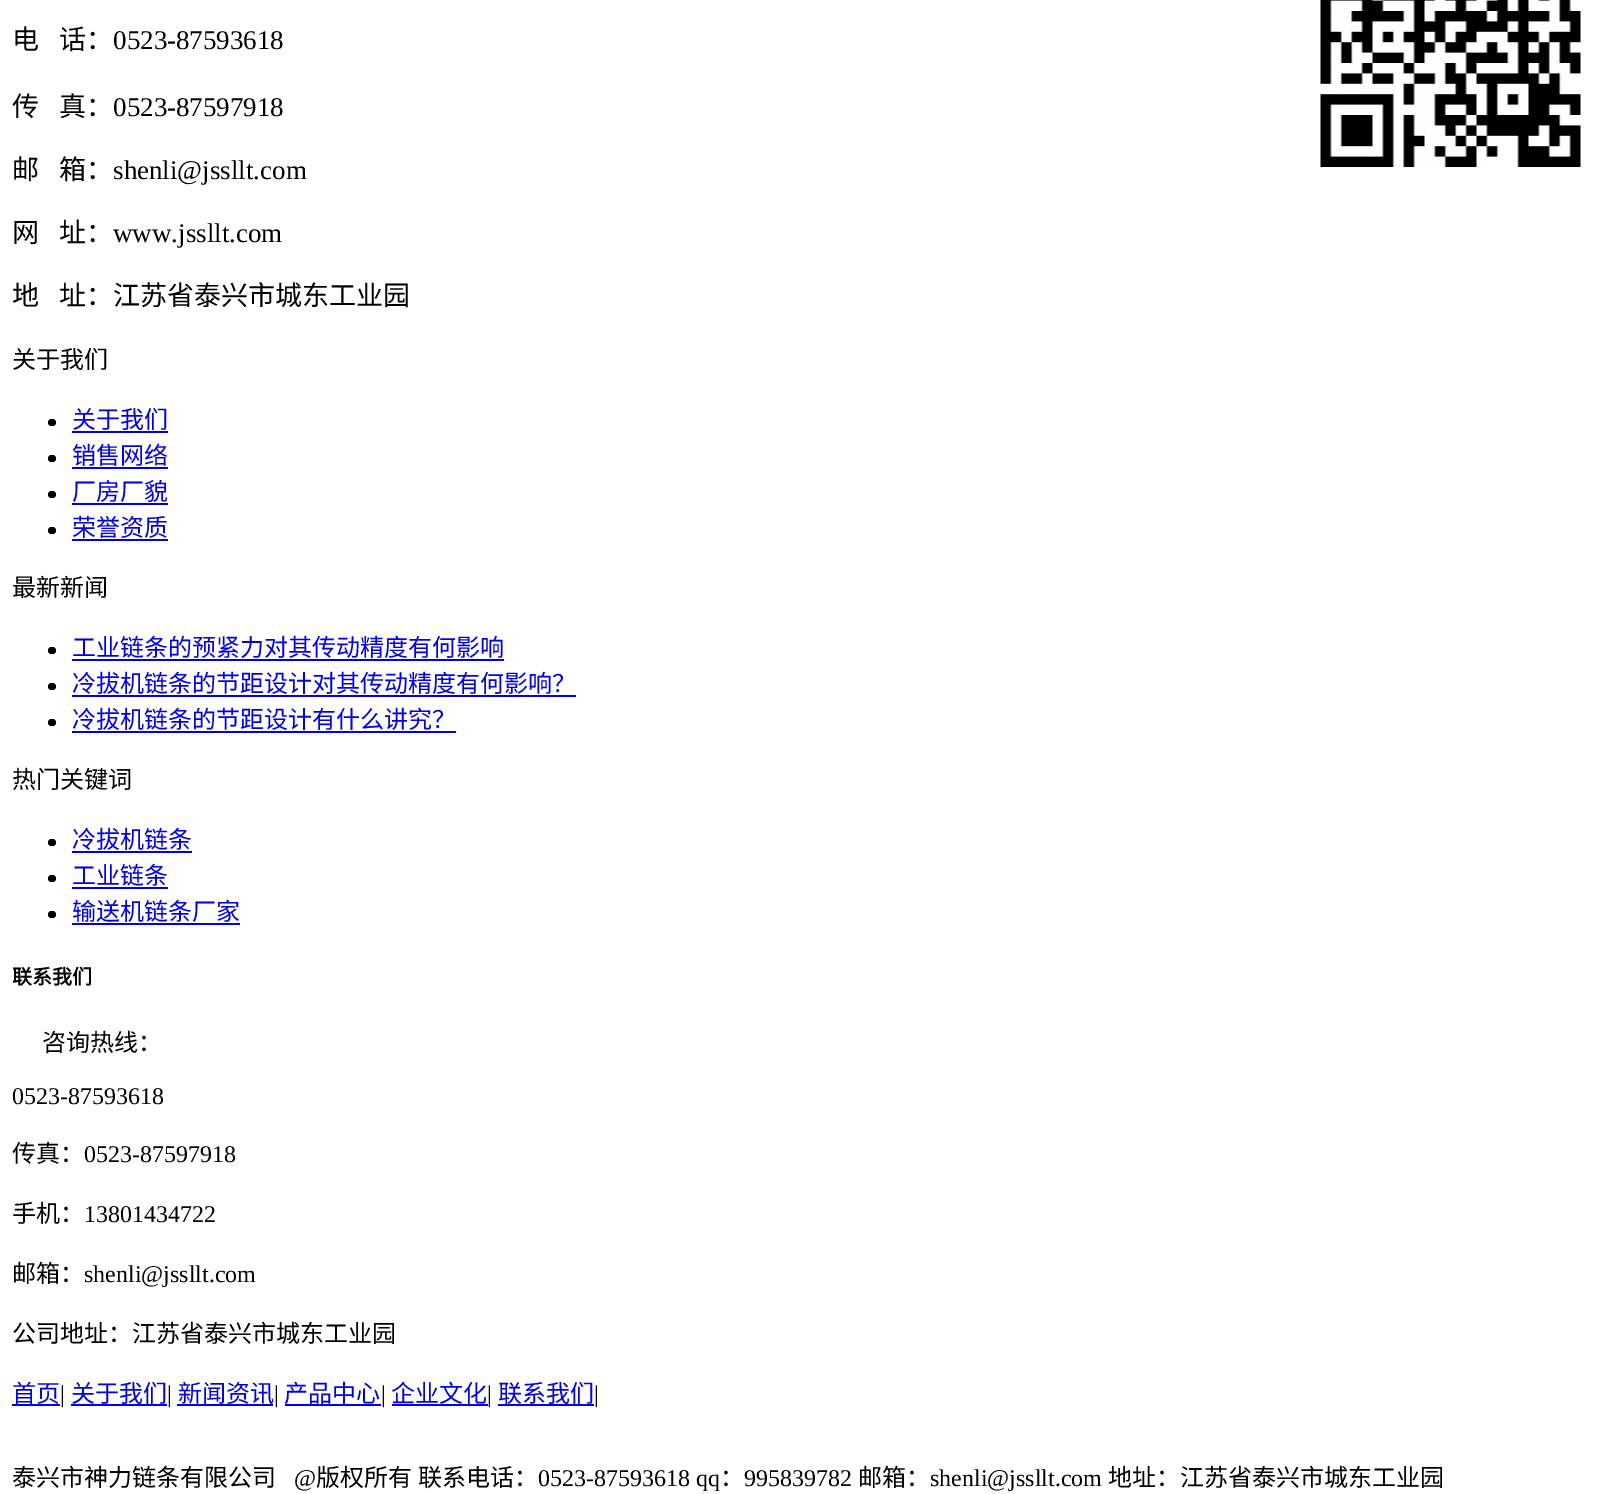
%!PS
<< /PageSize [1612 1494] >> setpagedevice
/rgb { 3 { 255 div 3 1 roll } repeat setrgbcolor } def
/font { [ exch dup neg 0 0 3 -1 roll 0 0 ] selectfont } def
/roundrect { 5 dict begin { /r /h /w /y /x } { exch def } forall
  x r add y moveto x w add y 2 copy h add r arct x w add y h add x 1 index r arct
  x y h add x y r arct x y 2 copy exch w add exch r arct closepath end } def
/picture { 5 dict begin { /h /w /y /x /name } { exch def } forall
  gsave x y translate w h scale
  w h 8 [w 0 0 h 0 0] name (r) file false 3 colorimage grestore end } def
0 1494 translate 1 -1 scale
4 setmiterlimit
255 255 255 rgb
0 0 1612 1494 rectfill
(img/1.rgb) 1320 0 261 167 picture
0 0 0 rgb
48 419 8 7 3.5 roundrect fill
0 0 238 rgb
72 431 96 2 rectfill
0 0 0 rgb
48 455 8 7 3.5 roundrect fill
0 0 238 rgb
72 467 96 2 rectfill
0 0 0 rgb
48 491 8 7 3.5 roundrect fill
0 0 238 rgb
72 503 96 2 rectfill
0 0 0 rgb
48 527 8 7 3.5 roundrect fill
0 0 238 rgb
72 539 96 2 rectfill
0 0 0 rgb
48 647 8 7 3.5 roundrect fill
0 0 238 rgb
72 659 432 2 rectfill
0 0 0 rgb
48 683 8 7 3.5 roundrect fill
0 0 238 rgb
72 695 504 2 rectfill
0 0 0 rgb
48 719 8 7 3.5 roundrect fill
0 0 238 rgb
72 731 384 2 rectfill
0 0 0 rgb
48 839 8 7 3.5 roundrect fill
0 0 238 rgb
72 851 120 2 rectfill
0 0 0 rgb
48 875 8 7 3.5 roundrect fill
0 0 238 rgb
72 887 96 2 rectfill
0 0 0 rgb
48 911 8 7 3.5 roundrect fill
[
  [72 923 168 2 0 0 238]
  [12 1404 48 2 0 0 238]
  [71 1404 96 2 0 0 238]
  [177 1404 96 2 0 0 238]
  [285 1404 96 2 0 0 238]
  [392 1404 96 2 0 0 238]
  [498 1404 96 2 0 0 238]
] { aload pop rgb rectfill } forall
/NotoSansCJKSC-Regular 27 font
0 0 0 rgb
12 49 moveto (电) show
59 49 moveto (话：) show
/LiberationSerif-Regular 27 font
113 49 moveto (0523-87593618) show
/NotoSansCJKSC-Regular 27 font
12 116 moveto (传) show
59 116 moveto (真：) show
/LiberationSerif-Regular 27 font
113 116 moveto (0523-87597918) show
/NotoSansCJKSC-Regular 27 font
12 179 moveto (邮) show
59 179 moveto (箱：) show
/LiberationSerif-Regular 27 font
113 179 moveto (shenli@jssllt.com) show
/NotoSansCJKSC-Regular 27 font
12 242 moveto (网) show
59 242 moveto (址：) show
/LiberationSerif-Regular 27 font
113 242 moveto (www.jssllt.com) show
/NotoSansCJKSC-Regular 27 font
12 305 moveto (地) show
59 305 moveto (址：江苏省泰兴市城东工业园) show
/NotoSansCJKSC-Regular 24 font
12 368 moveto (关于我们) show
0 0 238 rgb
[
  [(关于我们) 72 428]
  [(销售网络) 72 464]
  [(厂房厂貌) 72 500]
  [(荣誉资质) 72 536]
] { aload pop moveto show } forall
0 0 0 rgb
12 596 moveto (最新新闻) show
0 0 238 rgb
[
  [(工业链条的预紧力对其传动精度有何影响) 72 656]
  [(冷拔机链条的节距设计对其传动精度有何影响？) 72 692]
  [(冷拔机链条的节距设计有什么讲究？) 72 728]
] { aload pop moveto show } forall
0 0 0 rgb
12 788 moveto (热门关键词) show
0 0 238 rgb
[
  [(冷拔机链条) 72 848]
  [(工业链条) 72 884]
  [(输送机链条厂家) 72 920]
] { aload pop moveto show } forall
/NotoSansCJKSC-Bold 20 font
0 0 0 rgb
12 984 moveto (联系我们) show
/NotoSansCJKSC-Regular 24 font
42 1051 moveto (咨询热线：) show
/LiberationSerif-Regular 24 font
12 1104 moveto (0523-87593618) show
/NotoSansCJKSC-Regular 24 font
12 1162 moveto (传真：) show
/LiberationSerif-Regular 24 font
84 1162 moveto (0523-87597918) show
/NotoSansCJKSC-Regular 24 font
12 1222 moveto (手机：) show
/LiberationSerif-Regular 24 font
84 1222 moveto (13801434722) show
/NotoSansCJKSC-Regular 24 font
12 1282 moveto (邮箱：) show
/LiberationSerif-Regular 24 font
84 1282 moveto (shenli@jssllt.com) show
/NotoSansCJKSC-Regular 24 font
12 1342 moveto (公司地址：江苏省泰兴市城东工业园) show
0 0 238 rgb
12 1402 moveto (首页) show
/LiberationSerif-Regular 24 font
0 0 0 rgb
60 1402 moveto (|) show
/NotoSansCJKSC-Regular 24 font
0 0 238 rgb
71 1402 moveto (关于我们) show
/LiberationSerif-Regular 24 font
0 0 0 rgb
167 1402 moveto (|) show
/NotoSansCJKSC-Regular 24 font
0 0 238 rgb
178 1402 moveto (新闻资讯) show
/LiberationSerif-Regular 24 font
0 0 0 rgb
274 1402 moveto (|) show
/NotoSansCJKSC-Regular 24 font
0 0 238 rgb
284 1402 moveto (产品中心) show
/LiberationSerif-Regular 24 font
0 0 0 rgb
381 1402 moveto (|) show
/NotoSansCJKSC-Regular 24 font
0 0 238 rgb
391 1402 moveto (企业文化) show
/LiberationSerif-Regular 24 font
0 0 0 rgb
487 1402 moveto (|) show
/NotoSansCJKSC-Regular 24 font
0 0 238 rgb
498 1402 moveto (联系我们) show
/LiberationSerif-Regular 24 font
0 0 0 rgb
594 1402 moveto (|) show
/NotoSansCJKSC-Regular 24 font
12 1486 moveto (泰兴市神力链条有限公司) show
/LiberationSerif-Regular 24 font
294 1486 moveto (@) show
/NotoSansCJKSC-Regular 24 font
316 1486 moveto (版权所有) show
418 1486 moveto (联系电话：) show
/LiberationSerif-Regular 24 font
538 1486 moveto (0523-87593618 qq) show
/NotoSansCJKSC-Regular 24 font
720 1486 moveto (：) show
/LiberationSerif-Regular 24 font
744 1486 moveto (995839782) show
/NotoSansCJKSC-Regular 24 font
858 1486 moveto (邮箱：) show
/LiberationSerif-Regular 24 font
930 1486 moveto (shenli@jssllt.com) show
/NotoSansCJKSC-Regular 24 font
1108 1486 moveto (地址：江苏省泰兴市城东工业园) show
showpage
